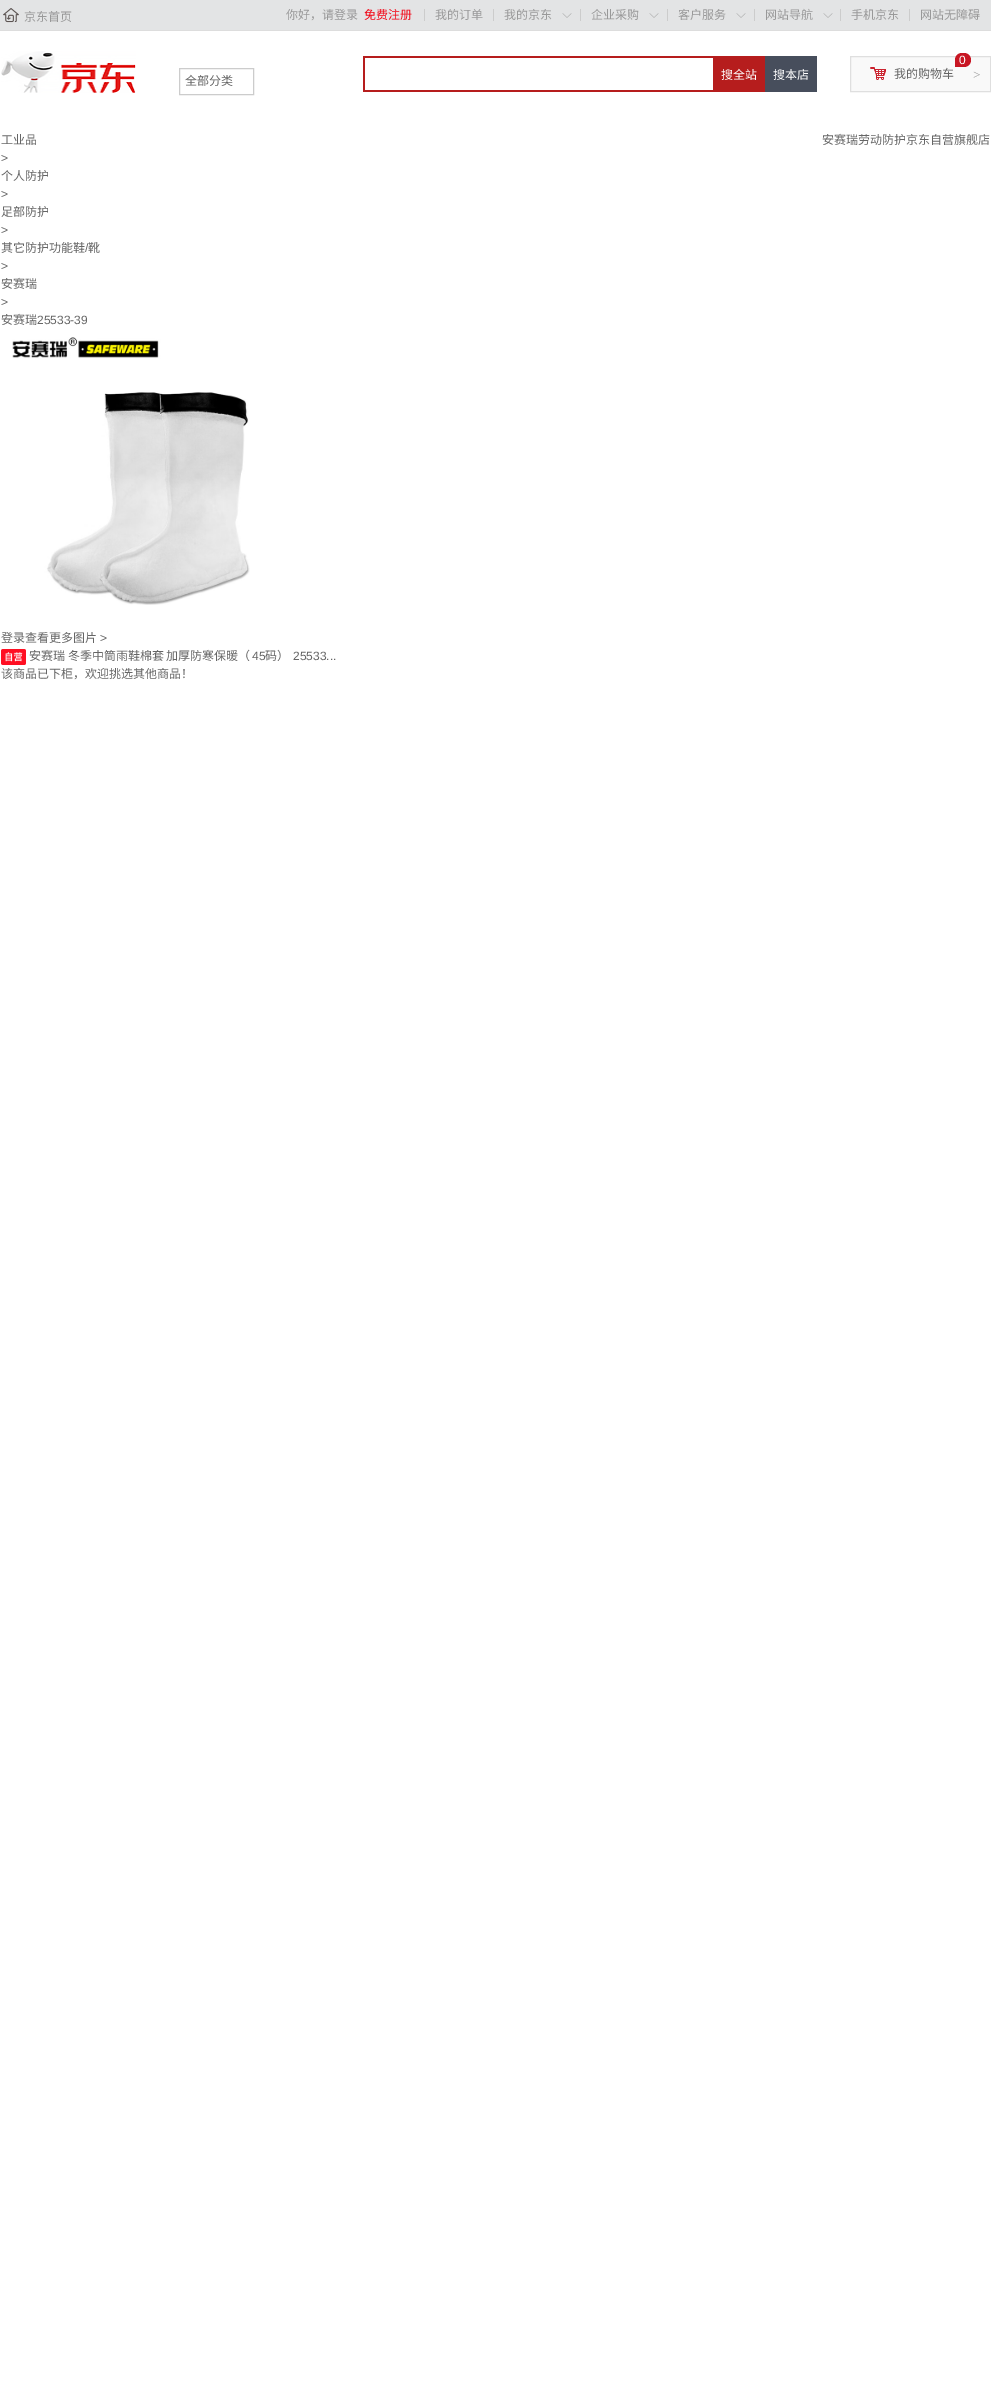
%!PS
<< /PageSize [991 2406] >> setpagedevice
/rgb { 3 { 255 div 3 1 roll } repeat setrgbcolor } def
/font { [ exch dup neg 0 0 3 -1 roll 0 0 ] selectfont } def
/picture { 5 dict begin { /h /w /y /x /name } { exch def } forall
  gsave x y translate w h scale
  w h 8 [w 0 0 h 0 0] name (r) file false 3 colorimage grestore end } def
0 2406 translate 1 -1 scale
4 setmiterlimit
255 255 255 rgb
0 0 991 2406 rectfill
227 228 229 rgb
0 0 991 30 rectfill
221 221 221 rgb
0 30 991 1 rectfill
(img/1.rgb) 3 8 16 15 picture
204 204 204 rgb
424 9 1 12 rectfill
493 9 1 12 rectfill
(img/2.rgb) 562 13 10 5 picture
580 9 1 12 rectfill
(img/2.rgb) 649 13 10 5 picture
667 9 1 12 rectfill
(img/2.rgb) 736 13 10 5 picture
754 9 1 12 rectfill
(img/2.rgb) 823 13 10 5 picture
840 9 1 12 rectfill
909 9 1 12 rectfill
(img/3.rgb) 1 51 135 42 picture
179.5 68.5 74 26 rectstroke
[
  [363 56 350 2 182 29 29]
  [363 90 350 2 182 29 29]
  [363 56 2 36 182 29 29]
  [713 56 52 36 182 29 29]
  [765 56 52 36 71 78 92]
] { aload pop rgb rectfill } forall
249 249 249 rgb
850.5 56.5 moveto 990.5 56.5 lineto 990.5 91.5 lineto 850.5 91.5 lineto closepath gsave fill grestore
223 223 223 rgb
stroke
200 22 35 rgb
962 53 moveto 964 53 lineto 968 53 971 56 971 60 curveto 971 64 968 67 964 67 curveto 955 67 lineto 955 60 lineto 955 56 958 53 962 53 curveto closepath fill
(img/4.rgb) 870 67 16 13 picture
(img/5.rgb) 12 337 238 268 picture
(img/6.rgb) 1 649 25 16 picture
/NotoSansCJKSC-Regular 12 font
153 153 153 rgb
24 21 moveto (京东首页) show
286 19 moveto (你好，请登录) show
243 2 19 rgb
364 19 moveto (免费注册) show
153 153 153 rgb
[
  [(我的订单) 435 19]
  [(我的京东) 504 19]
  [(企业采购) 591 19]
  [(客户服务) 678 19]
  [(网站导航) 765 19]
  [(手机京东) 851 19]
  [(网站无障碍) 920 19]
] { aload pop moveto show } forall
102 102 102 rgb
185 85 moveto (全部分类) show
255 255 255 rgb
721 79 moveto (搜全站) show
773 79 moveto (搜本店) show
/LiberationSans-Regular 12 font
959 64 moveto (0) show
/NotoSansCJKSC-Regular 12 font
102 102 102 rgb
894 78 moveto (我的购物车) show
/LiberationSerif-Regular 13 font
153 153 153 rgb
973 79 moveto (>) show
/NotoSansCJKSC-Regular 12 font
102 102 102 rgb
1 144 moveto (工业品) show
/LiberationSans-Regular 12 font
1 162 moveto (>) show
/NotoSansCJKSC-Regular 12 font
1 180 moveto (个人防护) show
/LiberationSans-Regular 12 font
1 198 moveto (>) show
/NotoSansCJKSC-Regular 12 font
1 216 moveto (足部防护) show
/LiberationSans-Regular 12 font
1 234 moveto (>) show
/NotoSansCJKSC-Regular 12 font
1 252 moveto (其它防护功能鞋) show
/LiberationSans-Regular 12 font
85 252 moveto (/) show
/NotoSansCJKSC-Regular 12 font
88 252 moveto (靴) show
/LiberationSans-Regular 12 font
1 270 moveto (>) show
/NotoSansCJKSC-Regular 12 font
1 288 moveto (安赛瑞) show
/LiberationSans-Regular 12 font
1 306 moveto (>) show
/NotoSansCJKSC-Regular 12 font
1 324 moveto (安赛瑞) show
/LiberationSans-Regular 12 font
37 324 moveto (25533-39) show
/NotoSansCJKSC-Regular 12 font
822 144 moveto (安赛瑞劳动防护京东自营旗舰店) show
1 642 moveto (登录查看更多图片) show
/LiberationSans-Regular 12 font
100 642 moveto (>) show
/NotoSansCJKSC-Regular 12 font
29 660 moveto (安赛瑞 冬季中筒雨鞋棉套 加厚防寒保暖（) show
/LiberationSans-Regular 12 font
252 660 moveto (45) show
/NotoSansCJKSC-Regular 12 font
265 660 moveto (码）) show
/LiberationSans-Regular 12 font
293 660 moveto (25533...) show
/NotoSansCJKSC-Regular 12 font
1 678 moveto (该商品已下柜，欢迎挑选其他商品！) show
showpage
